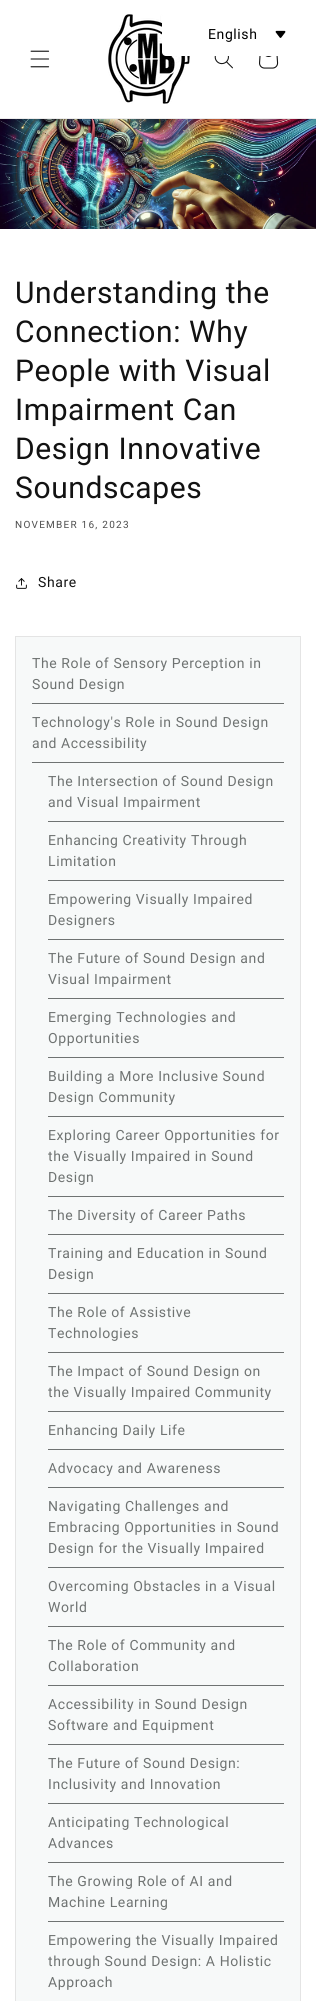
import math
import cairo

surface = cairo.ImageSurface(cairo.FORMAT_RGB24, 316, 2001)
cr = cairo.Context(surface)
options = cairo.FontOptions()
options.set_hint_metrics(cairo.HINT_METRICS_OFF)
options.set_hint_style(cairo.HINT_STYLE_NONE)
cr.set_font_options(options)
cr.set_miter_limit(4)


def rgb(code):
    cr.set_source_rgb(*(v / 255 for v in bytes.fromhex(code[-6:])))


def tracked(x, y, s, letter, word):
    cr.move_to(x, y)
    for ch in s:
        cr.show_text(ch)
        cr.rel_move_to(letter + word * (ch == ' '), 0)


def rrect(x, y, w, h, r):
    cr.new_sub_path()
    for i, (u, v) in enumerate([(x + w - r, y + h - r), (x + r, y + h - r), (x + r, y + r), (x + w - r, y + r)]):
        cr.arc(u, v, r, i * math.pi / 2, (i + 1) * math.pi / 2)
    cr.close_path()


def image(path, x, y, w, h):
    cr.save()
    cr.set_source_surface(cairo.ImageSurface.create_from_png(path), x, y)
    cr.rectangle(x, y, w, h)
    cr.fill()
    cr.restore()


rgb("#ffffff")
cr.paint()
rgb("#ececec")
cr.rectangle(0, 118, 316, 1)
cr.fill()
image("img/1.png", 30, 50, 20, 18)
image("img/2.png", 108, 14, 82, 90)
image("img/3.png", 214, 56, 19, 13)
image("img/4.png", 259, 56, 20, 13)
rgb("#ffffff")
rrect(162, 12, 142, 44, 4)
cr.fill()
image("img/5.png", 275, 30, 11, 8)
image("img/6.png", 0, 119, 316, 110)
image("img/7.png", 16, 578, 11, 11)
rgb("#f7f9f9")
cr.rectangle(15.5, 636.5, 285, 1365)
cr.fill_preserve()
rgb("#e4e4e4")
cr.set_line_width(1)
cr.stroke()
for x, y, w, h, color in [
    (32, 703, 252, 1, "#6f7372"),
    (32, 762, 252, 1, "#6f7372"),
    (48, 821, 236, 1, "#6f7372"),
    (48, 880, 236, 1, "#6f7372"),
    (48, 939, 236, 1, "#6f7372"),
    (48, 998, 236, 1, "#6f7372"),
    (48, 1057, 236, 1, "#6f7372"),
    (48, 1116, 236, 1, "#6f7372"),
    (48, 1196, 236, 1, "#6f7372"),
    (48, 1234, 236, 1, "#6f7372"),
    (48, 1293, 236, 1, "#6f7372"),
    (48, 1352, 236, 1, "#6f7372"),
    (48, 1411, 236, 1, "#6f7372"),
    (48, 1449, 236, 1, "#6f7372"),
    (48, 1487, 236, 1, "#6f7372"),
    (48, 1567, 236, 1, "#6f7372"),
    (48, 1626, 236, 1, "#6f7372"),
    (48, 1685, 236, 1, "#6f7372"),
    (48, 1744, 236, 1, "#6f7372"),
    (48, 1803, 236, 1, "#6f7372"),
    (48, 1862, 236, 1, "#6f7372"),
    (48, 1921, 236, 1, "#6f7372"),
]:
    rgb(color)
    cr.rectangle(x, y, w, h)
    cr.fill()
cr.select_font_face("Roboto")
cr.set_font_size(14)
rgb("#000000")
tracked(208, 39, "English", 0.6, 0)
cr.set_font_size(30)
rgb("#121212")
for x, y, s in [
    (15, 303, "Understanding the"),
    (15, 342, "Connection: Why"),
    (15, 381, "People with Visual"),
    (15, 420, "Impairment Can"),
    (15, 459, "Design Innovative"),
    (15, 498, "Soundscapes"),
]:
    tracked(x, y, s, 0.6, 0)
cr.set_font_size(10)
rgb("#4d4d4d")
tracked(15, 528, "NOVEMBER 16, 2023", 1.25, 0)
cr.set_font_size(14)
rgb("#121212")
tracked(38, 587, "Share", 0.6, 0)
rgb("#6f7372")
for x, y, s in [
    (32, 668, "The Role of Sensory Perception in"),
    (32, 689, "Sound Design"),
    (32, 727, "Technology's Role in Sound Design"),
    (32, 748, "and Accessibility"),
    (48, 786, "The Intersection of Sound Design"),
    (48, 807, "and Visual Impairment"),
    (48, 845, "Enhancing Creativity Through"),
    (48, 866, "Limitation"),
    (48, 904, "Empowering Visually Impaired"),
    (48, 925, "Designers"),
    (48, 963, "The Future of Sound Design and"),
    (48, 984, "Visual Impairment"),
    (48, 1022, "Emerging Technologies and"),
    (48, 1043, "Opportunities"),
    (48, 1081, "Building a More Inclusive Sound"),
    (48, 1102, "Design Community"),
    (48, 1140, "Exploring Career Opportunities for"),
    (48, 1161, "the Visually Impaired in Sound"),
    (48, 1182, "Design"),
    (48, 1220, "The Diversity of Career Paths"),
    (48, 1258, "Training and Education in Sound"),
    (48, 1279, "Design"),
    (48, 1317, "The Role of Assistive"),
    (48, 1338, "Technologies"),
    (48, 1376, "The Impact of Sound Design on"),
    (48, 1397, "the Visually Impaired Community"),
    (48, 1435, "Enhancing Daily Life"),
    (48, 1473, "Advocacy and Awareness"),
    (48, 1511, "Navigating Challenges and"),
    (48, 1532, "Embracing Opportunities in Sound"),
    (48, 1553, "Design for the Visually Impaired"),
    (48, 1591, "Overcoming Obstacles in a Visual"),
    (48, 1612, "World"),
    (48, 1650, "The Role of Community and"),
    (48, 1671, "Collaboration"),
    (48, 1709, "Accessibility in Sound Design"),
    (48, 1730, "Software and Equipment"),
    (48, 1768, "The Future of Sound Design:"),
    (48, 1789, "Inclusivity and Innovation"),
    (48, 1827, "Anticipating Technological"),
    (48, 1848, "Advances"),
    (48, 1886, "The Growing Role of AI and"),
    (48, 1907, "Machine Learning"),
    (48, 1945, "Empowering the Visually Impaired"),
    (48, 1966, "through Sound Design: A Holistic"),
    (48, 1987, "Approach"),
]:
    tracked(x, y, s, 0.6, 0)
surface.write_to_png("page.png")
